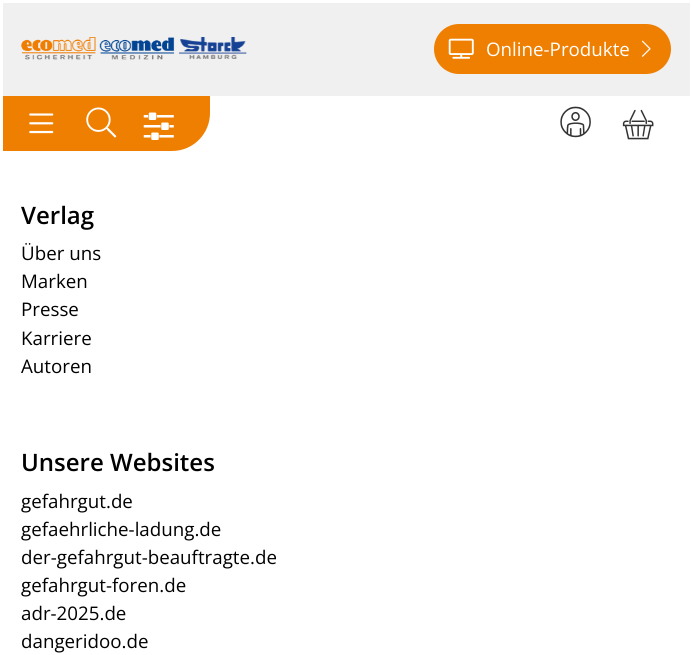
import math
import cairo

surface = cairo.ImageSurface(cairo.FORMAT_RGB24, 692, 655)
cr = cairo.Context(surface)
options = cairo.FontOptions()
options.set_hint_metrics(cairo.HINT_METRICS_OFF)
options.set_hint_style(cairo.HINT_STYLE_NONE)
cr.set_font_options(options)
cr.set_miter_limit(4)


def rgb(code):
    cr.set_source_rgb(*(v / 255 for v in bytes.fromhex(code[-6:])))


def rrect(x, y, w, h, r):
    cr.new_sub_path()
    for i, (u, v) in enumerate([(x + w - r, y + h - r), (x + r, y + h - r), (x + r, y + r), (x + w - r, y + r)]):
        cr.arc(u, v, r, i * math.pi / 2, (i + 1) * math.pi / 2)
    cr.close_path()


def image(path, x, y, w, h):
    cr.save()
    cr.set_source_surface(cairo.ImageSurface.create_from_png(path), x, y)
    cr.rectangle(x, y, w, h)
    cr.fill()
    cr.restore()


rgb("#ffffff")
cr.paint()
rgb("#f0f0f0")
cr.rectangle(3, 3, 687, 93)
cr.fill()
image("img/1.png", 21, 37, 226, 23)
rgb("#ef7f01")
rrect(434, 24, 237, 50, 25)
cr.fill()
image("img/2.png", 448, 38, 26, 21)
image("img/3.png", 641, 40, 10, 17)
cr.new_path()
cr.move_to(3, 96)
cr.line_to(210, 96)
cr.line_to(210, 113)
cr.curve_to(210, 134, 193, 151, 172, 151)
cr.line_to(3, 151)
cr.close_path()
cr.fill()
image("img/4.png", 29, 113, 25, 21)
image("img/5.png", 86, 107, 31, 31)
image("img/6.png", 143, 112, 31, 28)
image("img/7.png", 560, 106, 31, 32)
image("img/8.png", 622, 109, 32, 31)
cr.select_font_face("Open Sans")
cr.set_font_size(18.75)
rgb("#ffffff")
cr.move_to(486, 56)
cr.show_text("Online-Produkte")
cr.select_font_face("Open Sans SemiBold")
cr.set_font_size(24)
rgb("#000000")
cr.move_to(21, 224)
cr.show_text("Verlag")
cr.select_font_face("Open Sans")
cr.set_font_size(18.75)
for x, y, s in [
    (21, 260, "Über uns"),
    (21, 288, "Marken"),
    (21, 316, "Presse"),
    (21, 345, "Karriere"),
    (21, 373, "Autoren"),
]:
    cr.move_to(x, y)
    cr.show_text(s)
cr.select_font_face("Open Sans SemiBold")
cr.set_font_size(24)
cr.move_to(21, 471)
cr.show_text("Unsere Websites")
cr.select_font_face("Open Sans")
cr.set_font_size(18.75)
for x, y, s in [
    (21, 508, "gefahrgut.de"),
    (21, 536, "gefaehrliche-ladung.de"),
    (21, 564, "der-gefahrgut-beauftragte.de"),
    (21, 592, "gefahrgut-foren.de"),
    (21, 620, "adr-2025.de"),
    (21, 648, "dangeridoo.de"),
]:
    cr.move_to(x, y)
    cr.show_text(s)
surface.write_to_png("page.png")
